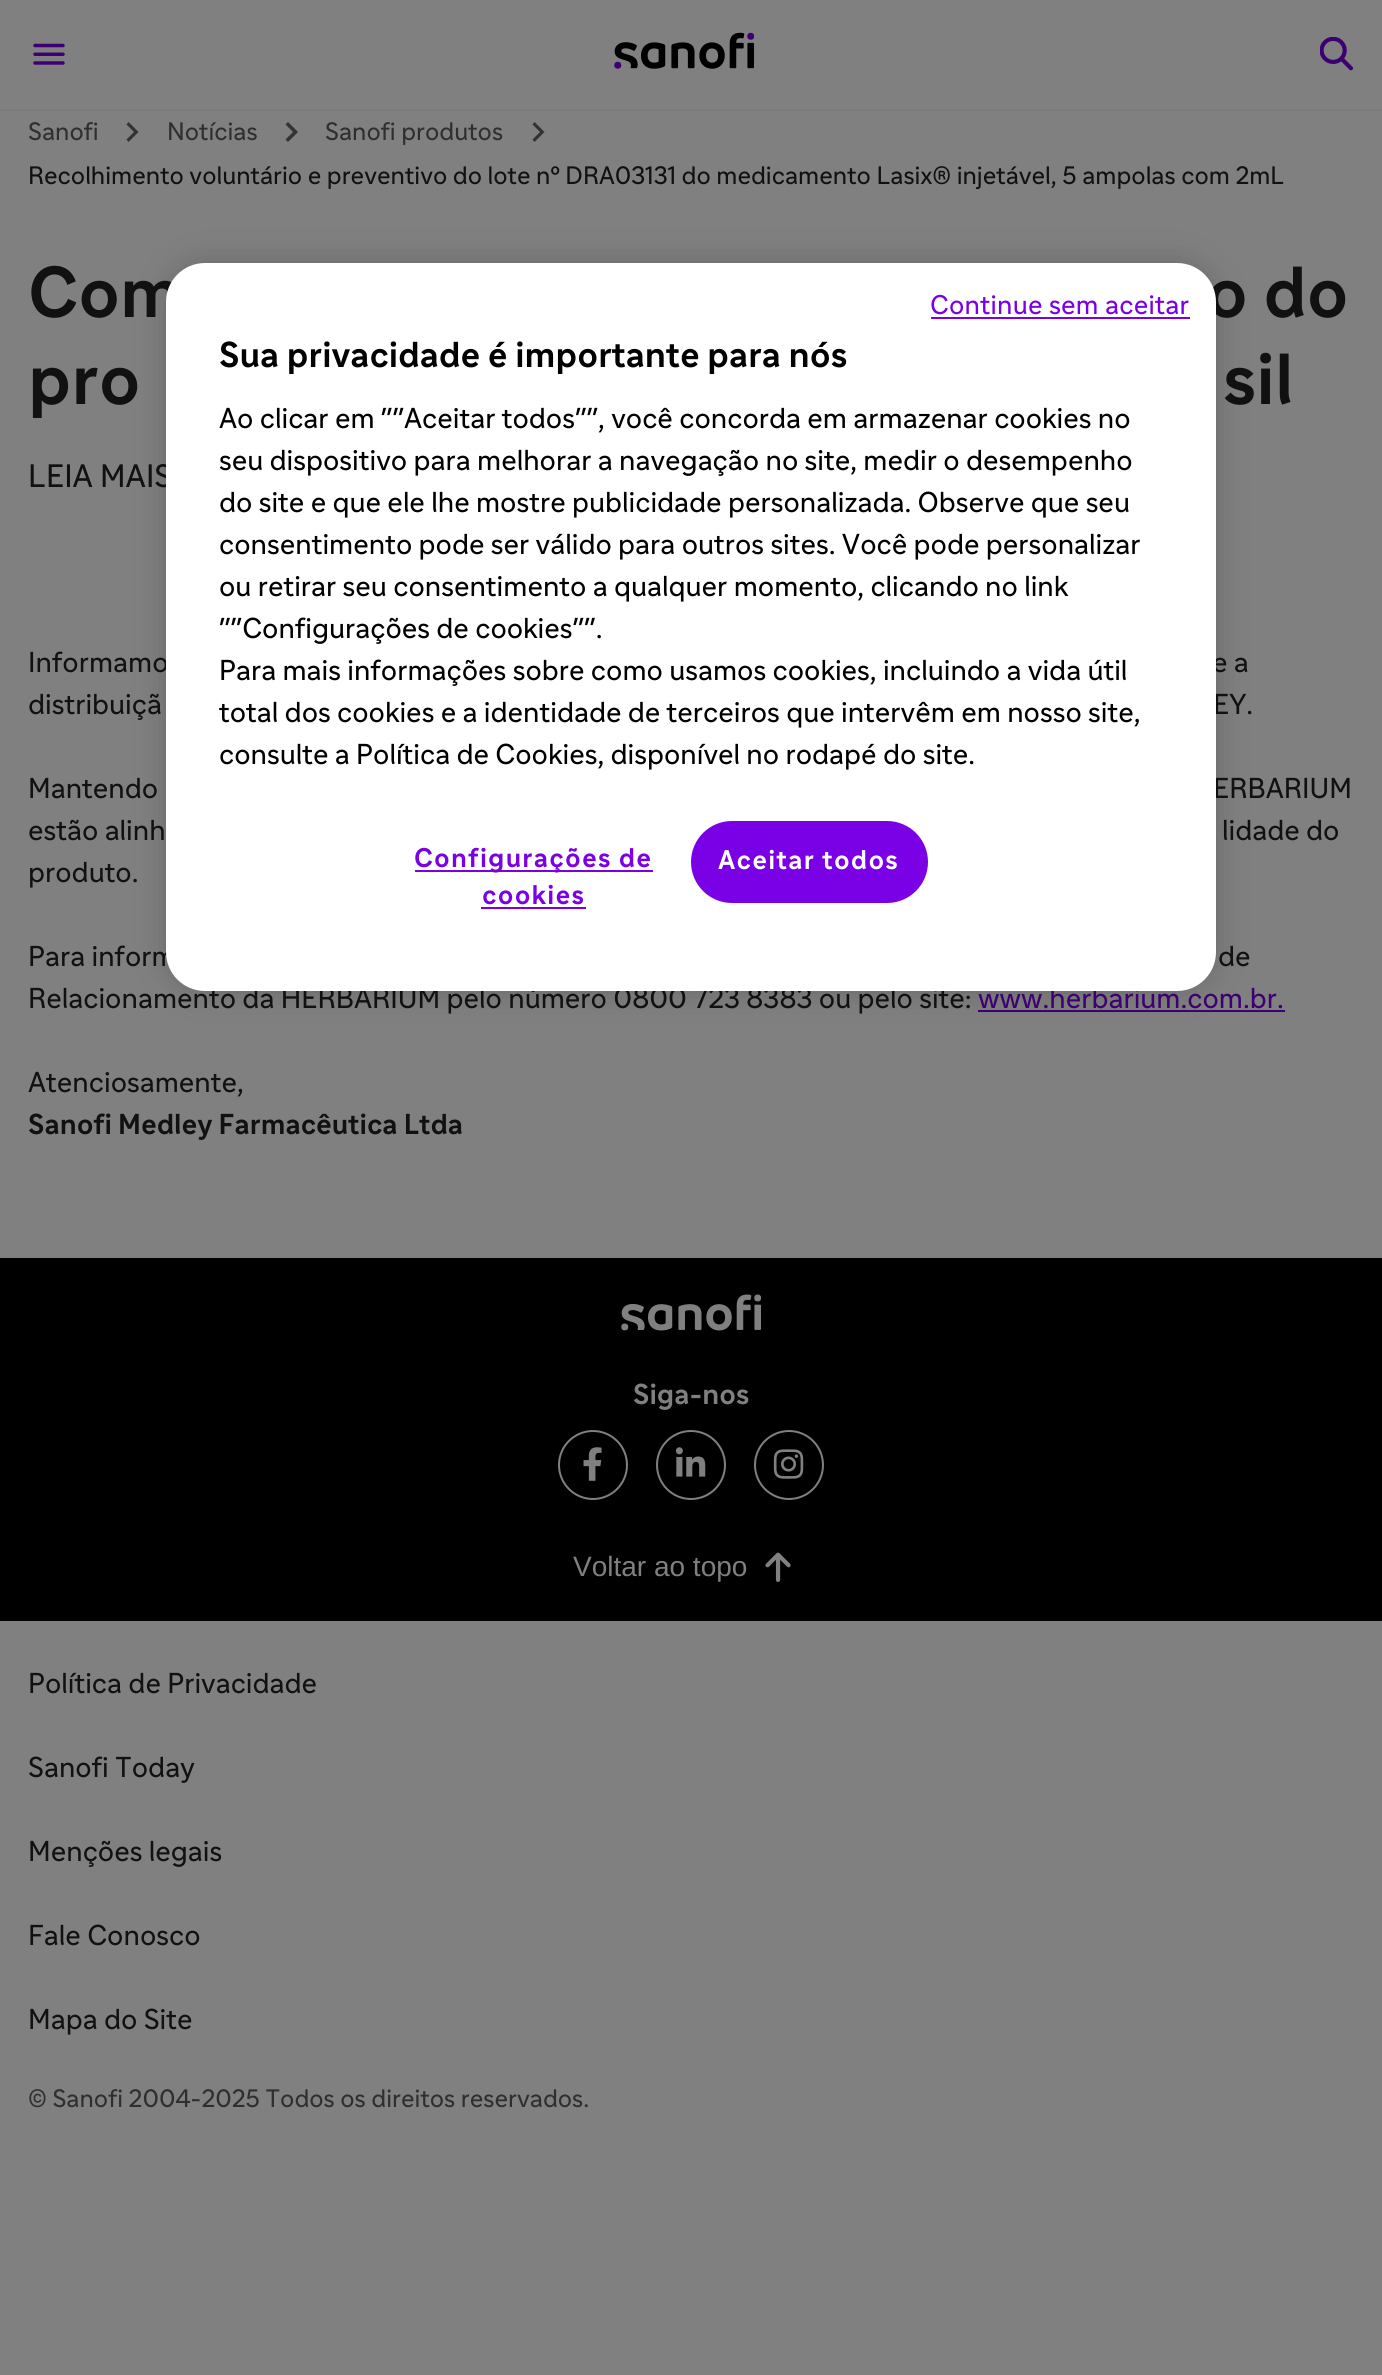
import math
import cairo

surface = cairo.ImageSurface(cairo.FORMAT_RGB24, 1382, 2375)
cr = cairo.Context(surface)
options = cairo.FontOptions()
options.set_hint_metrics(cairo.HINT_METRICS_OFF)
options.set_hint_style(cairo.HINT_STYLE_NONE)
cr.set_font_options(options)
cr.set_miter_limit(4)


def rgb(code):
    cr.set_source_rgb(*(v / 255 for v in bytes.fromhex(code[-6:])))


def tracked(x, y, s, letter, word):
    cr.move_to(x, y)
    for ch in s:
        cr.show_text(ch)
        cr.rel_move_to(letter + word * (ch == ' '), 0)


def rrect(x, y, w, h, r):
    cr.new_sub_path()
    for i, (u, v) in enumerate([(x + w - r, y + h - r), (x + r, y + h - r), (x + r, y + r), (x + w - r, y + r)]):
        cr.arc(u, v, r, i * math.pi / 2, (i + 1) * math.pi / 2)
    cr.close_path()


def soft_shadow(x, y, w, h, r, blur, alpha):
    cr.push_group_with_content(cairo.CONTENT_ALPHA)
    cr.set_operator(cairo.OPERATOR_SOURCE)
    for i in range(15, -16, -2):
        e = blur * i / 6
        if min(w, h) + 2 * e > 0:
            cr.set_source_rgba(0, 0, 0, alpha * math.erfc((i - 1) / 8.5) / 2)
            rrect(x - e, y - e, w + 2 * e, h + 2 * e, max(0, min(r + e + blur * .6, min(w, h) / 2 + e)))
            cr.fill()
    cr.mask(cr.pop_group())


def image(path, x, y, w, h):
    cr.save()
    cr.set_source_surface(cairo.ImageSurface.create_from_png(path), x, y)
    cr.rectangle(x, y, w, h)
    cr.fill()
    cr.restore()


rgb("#808080")
cr.paint()
rgb("#7b7b7b")
cr.rectangle(0, 109, 1382, 2)
cr.fill()
image("img/1.png", 33, 43, 32, 22)
image("img/2.png", 614, 32, 140, 37)
image("img/3.png", 1320, 37, 34, 34)
rgb("#333333")
cr.new_path()
cr.move_to(128.5, 122)
cr.line_to(126.5, 124.5)
cr.line_to(134, 132)
cr.line_to(126.5, 139.5)
cr.line_to(128.5, 142)
cr.line_to(138.5, 132)
cr.close_path()
cr.fill()
cr.new_path()
cr.move_to(288, 122)
cr.line_to(285.5, 124.5)
cr.line_to(293, 132)
cr.line_to(285.5, 139.5)
cr.line_to(288, 142)
cr.line_to(298, 132)
cr.close_path()
cr.fill()
cr.new_path()
cr.move_to(534.5, 122)
cr.line_to(532.5, 124.5)
cr.line_to(540, 132)
cr.line_to(532.5, 139.5)
cr.line_to(534.5, 142)
cr.line_to(544.5, 132)
cr.close_path()
cr.fill()
rgb("#3d0073")
cr.rectangle(978, 1010, 307, 2)
cr.fill()
rgb("#000000")
cr.rectangle(0, 1258, 1382, 363)
cr.fill()
image("img/4.png", 621, 1294, 140, 37)
cr.arc(593, 1465, 34, 0, 2 * math.pi)
rgb("#808080")
cr.stroke()
image("img/5.png", 583, 1447, 19, 34)
cr.arc(691, 1465, 34, 0, 2 * math.pi)
cr.stroke()
image("img/6.png", 675, 1447, 31, 30)
cr.arc(789, 1465, 34, 0, 2 * math.pi)
cr.stroke()
image("img/7.png", 773, 1449, 31, 30)
image("img/8.png", 765, 1552, 26, 30)
rgb("#000000")
soft_shadow(166, 263, 1050, 728, 39, 16, 0.2)
cr.select_font_face("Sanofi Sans")
cr.set_font_size(24.5)
rgb("#2f2f2f")
for x, y, s in [
    (28, 140, "Sanofi"),
    (167, 140, "Notícias"),
    (325, 140, "Sanofi produtos"),
]:
    cr.move_to(x, y)
    cr.show_text(s)
rgb("#111111")
cr.move_to(28, 184)
cr.show_text("Recolhimento voluntário e preventivo do lote nº DRA03131 do medicamento Lasix® injetável, 5 ampolas com 2mL")
cr.select_font_face("Sanofi Sans", cairo.FONT_SLANT_NORMAL, cairo.FONT_WEIGHT_BOLD)
cr.set_font_size(70)
for x, y, s in [
    (28, 317, "Com"),
    (1206, 317, "o do"),
    (28, 404, "pro"),
    (1223, 404, "sil"),
]:
    cr.move_to(x, y)
    cr.show_text(s)
cr.select_font_face("Sanofi Sans")
cr.set_font_size(31.5)
cr.move_to(28, 487)
cr.show_text("LEIA MAIS")
cr.set_font_size(28)
for x, y, s in [
    (28, 672, "Informamo"),
    (1212, 672, "e a"),
    (28, 714, "distribuiçã"),
    (1213, 714, "EY."),
    (28, 798, "Mantendo"),
    (1213, 798, "ERBARIUM"),
    (28, 840, "estão alinh"),
    (1222, 840, "lidade do"),
    (28, 882, "produto."),
    (28, 966, "Para inform"),
    (1218, 966, "de"),
    (28, 1008, "Relacionamento da HERBARIUM pelo número 0800 723 8383 ou pelo site:"),
]:
    cr.move_to(x, y)
    cr.show_text(s)
rgb("#3d0073")
cr.move_to(978, 1008)
cr.show_text("www.herbarium.com.br.")
rgb("#111111")
cr.move_to(28, 1092)
cr.show_text("Atenciosamente,")
cr.select_font_face("Sanofi Sans", cairo.FONT_SLANT_NORMAL, cairo.FONT_WEIGHT_BOLD)
cr.move_to(28, 1134)
cr.show_text("Sanofi Medley Farmacêutica Ltda")
rgb("#808080")
cr.move_to(633, 1404)
cr.show_text("Siga-nos")
cr.select_font_face("Liberation Sans")
cr.move_to(573, 1576)
cr.show_text("Voltar ao topo")
cr.select_font_face("Sanofi Sans")
rgb("#111111")
for x, y, s in [
    (28, 1693, "Política de Privacidade"),
    (28, 1777, "Sanofi Today"),
    (28, 1861, "Menções legais"),
    (28, 1945, "Fale Conosco"),
    (28, 2029, "Mapa do Site"),
]:
    cr.move_to(x, y)
    cr.show_text(s)
cr.set_font_size(24.5)
rgb("#2f2f2f")
cr.move_to(28, 2107)
cr.show_text("© Sanofi 2004-2025 Todos os direitos reservados.")
rgb("#ffffff")
rrect(166, 263, 1050, 728, 39)
cr.fill()
cr.set_font_size(26.25)
rgb("#7a00e6")
tracked(930, 314, "Continue sem aceitar", 0.25, 0)
cr.rectangle(931, 317, 259, 2)
cr.fill()
cr.select_font_face("Sanofi Sans", cairo.FONT_SLANT_NORMAL, cairo.FONT_WEIGHT_BOLD)
cr.set_font_size(35)
rgb("#000000")
cr.move_to(219, 367)
cr.show_text("Sua privacidade é importante para nós")
cr.select_font_face("Sanofi Sans")
cr.set_font_size(28)
for x, y, s in [
    (219, 428, "Ao clicar em \"\"Aceitar todos\"\", você concorda em armazenar cookies no"),
    (219, 470, "seu dispositivo para melhorar a navegação no site, medir o desempenho"),
    (219, 512, "do site e que ele lhe mostre publicidade personalizada. Observe que seu"),
    (219, 554, "consentimento pode ser válido para outros sites. Você pode personalizar"),
    (219, 596, "ou retirar seu consentimento a qualquer momento, clicando no link"),
    (219, 638, "\"\"Configurações de cookies\"\"."),
    (219, 680, "Para mais informações sobre como usamos cookies, incluindo a vida útil"),
    (219, 722, "total dos cookies e a identidade de terceiros que intervêm em nosso site,"),
    (219, 764, "consulte a Política de Cookies, disponível no rodapé do site."),
]:
    cr.move_to(x, y)
    cr.show_text(s)
rgb("#7a00e6")
cr.rectangle(415, 870, 238, 2)
cr.fill()
cr.select_font_face("Sanofi Sans", cairo.FONT_SLANT_NORMAL, cairo.FONT_WEIGHT_BOLD)
cr.set_font_size(26.25)
tracked(414, 867, "Configurações de", 1.25, 0)
tracked(482, 904, "cookies", 1.25, 0)
cr.rectangle(481, 907, 105, 2)
cr.fill()
rrect(692, 822, 235, 80, 40)
cr.fill_preserve()
cr.stroke()
rgb("#ffffff")
tracked(718, 869, "Aceitar todos", 1.25, 0)
surface.write_to_png("page.png")
